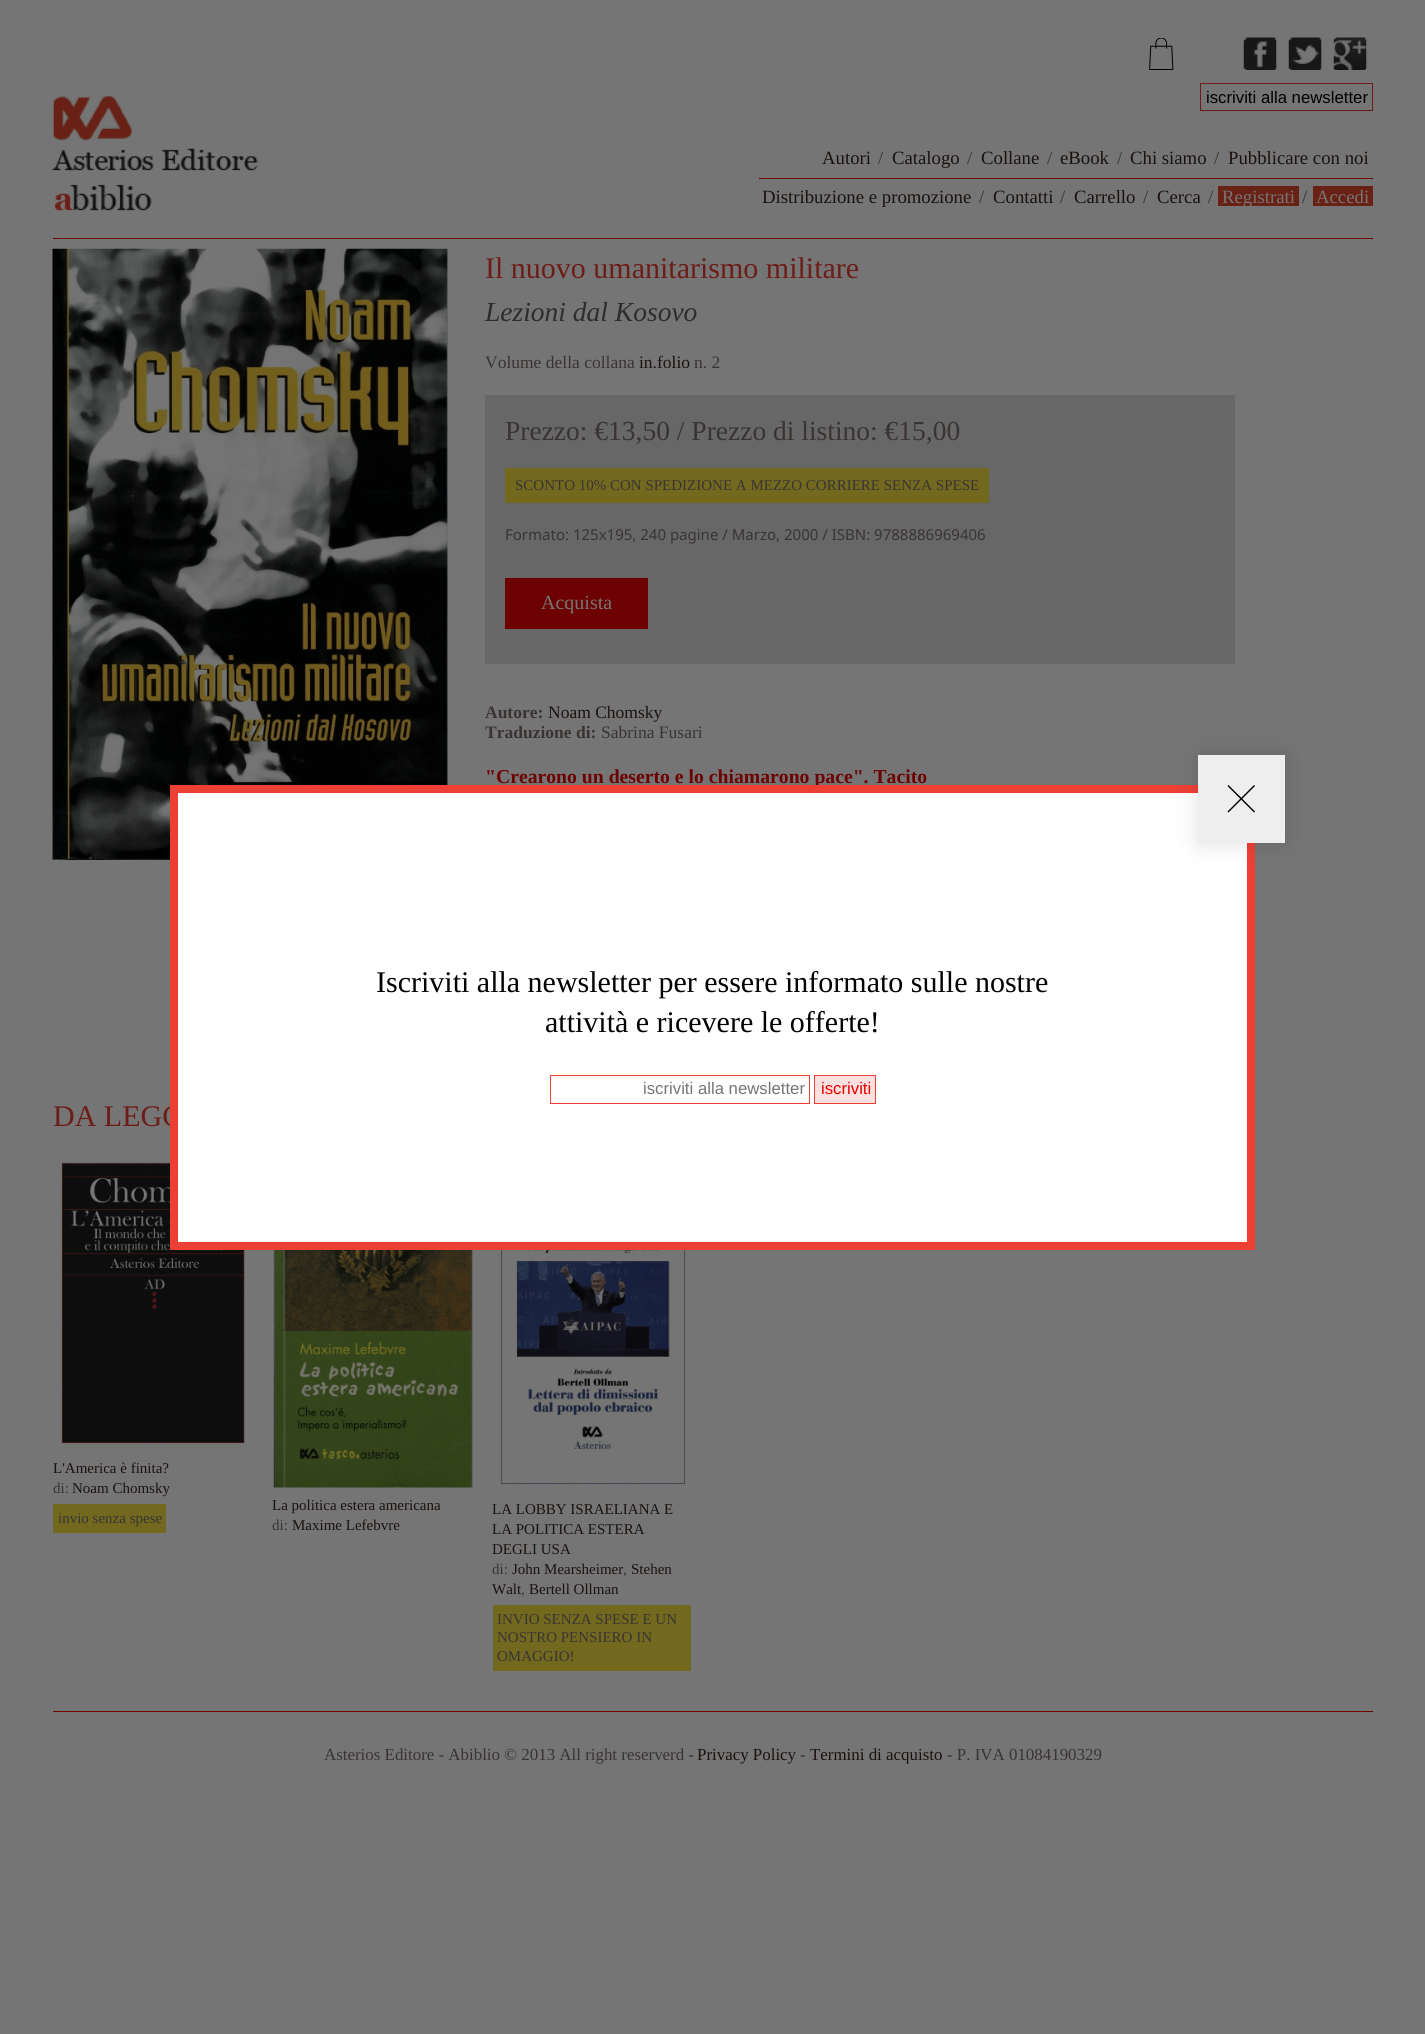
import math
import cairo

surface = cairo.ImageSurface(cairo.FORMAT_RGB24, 1425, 2034)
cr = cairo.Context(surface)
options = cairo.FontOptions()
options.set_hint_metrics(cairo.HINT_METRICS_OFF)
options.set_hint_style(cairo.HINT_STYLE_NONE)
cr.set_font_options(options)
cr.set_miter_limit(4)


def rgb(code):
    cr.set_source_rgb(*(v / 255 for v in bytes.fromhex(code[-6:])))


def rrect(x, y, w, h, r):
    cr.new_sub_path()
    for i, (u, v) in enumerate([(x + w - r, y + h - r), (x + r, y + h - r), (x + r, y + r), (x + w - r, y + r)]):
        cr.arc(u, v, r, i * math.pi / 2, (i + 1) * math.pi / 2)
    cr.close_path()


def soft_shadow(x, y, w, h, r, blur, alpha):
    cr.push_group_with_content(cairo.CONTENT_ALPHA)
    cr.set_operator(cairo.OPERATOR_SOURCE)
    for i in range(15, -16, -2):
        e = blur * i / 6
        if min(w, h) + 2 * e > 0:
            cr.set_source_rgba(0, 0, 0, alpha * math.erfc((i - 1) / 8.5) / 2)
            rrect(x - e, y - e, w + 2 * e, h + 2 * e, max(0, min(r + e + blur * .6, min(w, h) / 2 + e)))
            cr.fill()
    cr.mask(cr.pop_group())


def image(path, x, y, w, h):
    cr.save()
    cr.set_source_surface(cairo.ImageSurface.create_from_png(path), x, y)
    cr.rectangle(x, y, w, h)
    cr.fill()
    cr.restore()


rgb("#757575")
cr.paint()
image("img/1.png", 52, 95, 206, 116)
image("img/2.png", 1149, 38, 25, 32)
image("img/3.png", 1243, 37, 34, 33)
image("img/4.png", 1288, 37, 34, 33)
image("img/5.png", 1333, 37, 34, 33)
cr.rectangle(1200.5, 83.5, 172, 27)
rgb("#6d1d18")
cr.set_line_width(1)
cr.stroke()
for x, y, w, h, color in [
    (759, 178, 614, 1, "#6d0000"),
    (1218, 186, 81, 20, "#692116"),
    (1313, 186, 60, 20, "#692116"),
    (53, 238, 1320, 1, "#6d0000"),
]:
    rgb(color)
    cr.rectangle(x, y, w, h)
    cr.fill()
image("img/6.png", 52, 248, 396, 612)
for x, y, w, h, color in [
    (485, 395, 750, 269, "#676767"),
    (505, 468, 484, 35, "#72691f"),
    (505, 578, 143, 51, "#6d0000"),
]:
    rgb(color)
    cr.rectangle(x, y, w, h)
    cr.fill()
image("img/7.png", 61, 1162, 184, 282)
rgb("#72691f")
cr.rectangle(53, 1504, 113, 29)
cr.fill()
image("img/8.png", 273, 1250, 200, 238)
image("img/9.png", 500, 1250, 186, 237)
cr.rectangle(493, 1605, 198, 66)
cr.fill()
rgb("#6d0000")
cr.rectangle(53, 1711, 1320, 1)
cr.fill()
cr.select_font_face("Liberation Sans")
cr.set_font_size(16.75)
rgb("#000000")
cr.move_to(1206, 103)
cr.show_text("iscriviti alla newsletter")
cr.select_font_face("Liberation Serif")
cr.set_font_size(18.75)
rgb("#1a120f")
cr.move_to(822, 164)
cr.show_text("Autori")
rgb("#393432")
cr.move_to(878, 164)
cr.show_text("/")
rgb("#1a120f")
cr.move_to(892, 164)
cr.show_text("Catalogo")
rgb("#393432")
cr.move_to(967, 164)
cr.show_text("/")
rgb("#1a120f")
cr.move_to(981, 164)
cr.show_text("Collane")
rgb("#393432")
cr.move_to(1047, 164)
cr.show_text("/")
rgb("#1a120f")
cr.move_to(1060, 164)
cr.show_text("eBook")
rgb("#393432")
cr.move_to(1117, 164)
cr.show_text("/")
rgb("#1a120f")
cr.move_to(1130, 164)
cr.show_text("Chi siamo")
rgb("#393432")
cr.move_to(1214, 164)
cr.show_text("/")
rgb("#1a120f")
cr.move_to(1228, 164)
cr.show_text("Pubblicare con noi")
cr.move_to(762, 203)
cr.show_text("Distribuzione e promozione")
rgb("#393432")
cr.move_to(979, 203)
cr.show_text("/")
rgb("#1a120f")
cr.move_to(993, 203)
cr.show_text("Contatti")
rgb("#393432")
cr.move_to(1060, 203)
cr.show_text("/")
rgb("#1a120f")
cr.move_to(1074, 203)
cr.show_text("Carrello")
rgb("#393432")
cr.move_to(1143, 203)
cr.show_text("/")
rgb("#1a120f")
cr.move_to(1157, 203)
cr.show_text("Cerca")
rgb("#393432")
cr.move_to(1208, 203)
cr.show_text("/")
rgb("#757575")
cr.move_to(1222, 203)
cr.show_text("Registrati")
rgb("#393432")
cr.move_to(1302, 203)
cr.show_text("/")
rgb("#757575")
cr.move_to(1316, 203)
cr.show_text("Accedi")
cr.set_font_size(30)
rgb("#6d1d18")
cr.move_to(485, 278)
cr.show_text("Il nuovo umanitarismo militare")
cr.select_font_face("Liberation Serif", cairo.FONT_SLANT_ITALIC)
cr.set_font_size(27.5)
rgb("#2e2c2c")
cr.move_to(485, 321)
cr.show_text("Lezioni dal Kosovo")
cr.select_font_face("Liberation Serif")
cr.set_font_size(17.5)
rgb("#393432")
cr.move_to(485, 368)
cr.show_text("Volume della collana")
rgb("#1a120f")
cr.move_to(639, 368)
cr.show_text("in.folio")
rgb("#393432")
cr.move_to(694, 368)
cr.show_text("n. 2")
cr.set_font_size(27.5)
cr.move_to(505, 440)
cr.show_text("Prezzo: €13,50 / Prezzo di listino: €15,00")
cr.set_font_size(15)
cr.move_to(515, 490)
cr.show_text("SCONTO 10% CON SPEDIZIONE A MEZZO CORRIERE SENZA SPESE")
cr.select_font_face("Noto Sans")
cr.move_to(505, 540)
cr.show_text("Formato: 125x195, 240 pagine / Marzo, 2000 / ISBN: 9788886969406")
cr.select_font_face("Liberation Serif")
cr.set_font_size(20)
rgb("#757575")
cr.move_to(541, 609)
cr.show_text("Acquista")
cr.select_font_face("Liberation Serif", cairo.FONT_SLANT_NORMAL, cairo.FONT_WEIGHT_BOLD)
cr.set_font_size(17.5)
rgb("#393432")
cr.move_to(485, 718)
cr.show_text("Autore:")
cr.select_font_face("Liberation Serif")
rgb("#1a120f")
cr.move_to(548, 718)
cr.show_text("Noam Chomsky")
cr.select_font_face("Liberation Serif", cairo.FONT_SLANT_NORMAL, cairo.FONT_WEIGHT_BOLD)
rgb("#393432")
cr.move_to(485, 738)
cr.show_text("Traduzione di:")
cr.select_font_face("Liberation Serif")
cr.move_to(601, 738)
cr.show_text("Sabrina Fusari")
cr.select_font_face("Liberation Serif", cairo.FONT_SLANT_NORMAL, cairo.FONT_WEIGHT_BOLD)
cr.set_font_size(19.7)
rgb("#6d0000")
cr.move_to(485, 783)
cr.show_text("\"Crearono un deserto e lo chiamarono pace\". Tacito")
cr.select_font_face("Liberation Serif")
cr.set_font_size(30)
rgb("#6d1d18")
cr.move_to(53, 1126)
cr.show_text("DA LEGG")
cr.set_font_size(15)
rgb("#1a120f")
cr.move_to(53, 1473)
cr.show_text("L'America è finita?")
rgb("#393432")
cr.move_to(53, 1493)
cr.show_text("di:")
rgb("#1a120f")
cr.move_to(72, 1493)
cr.show_text("Noam Chomsky")
rgb("#393432")
cr.move_to(58, 1523)
cr.show_text("invio senza spese")
rgb("#1a120f")
cr.move_to(272, 1510)
cr.show_text("La politica estera americana")
rgb("#393432")
cr.move_to(272, 1530)
cr.show_text("di:")
rgb("#1a120f")
for x, y, s in [
    (292, 1530, "Maxime Lefebvre"),
    (492, 1514, "LA LOBBY ISRAELIANA E"),
    (492, 1534, "LA POLITICA ESTERA"),
    (492, 1554, "DEGLI USA"),
]:
    cr.move_to(x, y)
    cr.show_text(s)
rgb("#393432")
cr.move_to(492, 1574)
cr.show_text("di:")
rgb("#1a120f")
cr.move_to(512, 1574)
cr.show_text("John Mearsheimer")
rgb("#393432")
cr.move_to(623, 1574)
cr.show_text(",")
rgb("#1a120f")
cr.move_to(631, 1574)
cr.show_text("Stehen")
cr.move_to(492, 1594)
cr.show_text("Walt")
rgb("#393432")
cr.move_to(521, 1594)
cr.show_text(",")
rgb("#1a120f")
cr.move_to(529, 1594)
cr.show_text("Bertell Ollman")
rgb("#393432")
for x, y, s in [
    (497, 1624, "INVIO SENZA SPESE E UN"),
    (497, 1642, "NOSTRO PENSIERO IN"),
    (497, 1661, "OMAGGIO!"),
]:
    cr.move_to(x, y)
    cr.show_text(s)
cr.set_font_size(16.9)
cr.move_to(324, 1760)
cr.show_text("Asterios Editore - Abiblio © 2013 All right reserverd -")
rgb("#1a120f")
cr.move_to(697, 1760)
cr.show_text("Privacy Policy")
rgb("#393432")
cr.move_to(800, 1760)
cr.show_text("-")
rgb("#1a120f")
cr.move_to(810, 1760)
cr.show_text("Termini di acquisto")
rgb("#393432")
cr.move_to(947, 1760)
cr.show_text("- P. IVA 01084190329")
rgb("#ffffff")
cr.rectangle(174, 789, 1077, 457)
cr.fill_preserve()
rgb("#ec4035")
cr.set_line_width(8)
cr.stroke()
rgb("#000000")
soft_shadow(1198, 755, 87, 88, 0, 12, 0.12)
rgb("#eeeeee")
cr.rectangle(1198, 755, 87, 88)
cr.fill()
rgb("#000000")
cr.new_path()
cr.move_to(1228.5, 785)
cr.line_to(1255, 811.5)
cr.line_to(1254, 812.5)
cr.line_to(1227.5, 786)
cr.close_path()
cr.fill()
cr.new_path()
cr.move_to(1227.5, 811.5)
cr.line_to(1254, 785)
cr.line_to(1255, 786)
cr.line_to(1228.5, 812.5)
cr.close_path()
cr.fill()
cr.set_font_size(30)
cr.move_to(376, 992)
cr.show_text("Iscriviti alla newsletter per essere informato sulle nostre")
cr.move_to(545, 1032)
cr.show_text("attività e ricevere le offerte!")
cr.rectangle(550.5, 1075.5, 259, 28)
rgb("#ec4035")
cr.set_line_width(1)
cr.stroke()
cr.select_font_face("Liberation Sans")
cr.set_font_size(16.75)
rgb("#757575")
cr.move_to(643, 1094)
cr.show_text("iscriviti alla newsletter")
rgb("#fde0e0")
cr.rectangle(814.5, 1075.5, 61, 28)
cr.fill_preserve()
rgb("#ec4035")
cr.stroke()
rgb("#ed0000")
cr.move_to(821, 1094)
cr.show_text("iscriviti")
surface.write_to_png("page.png")
